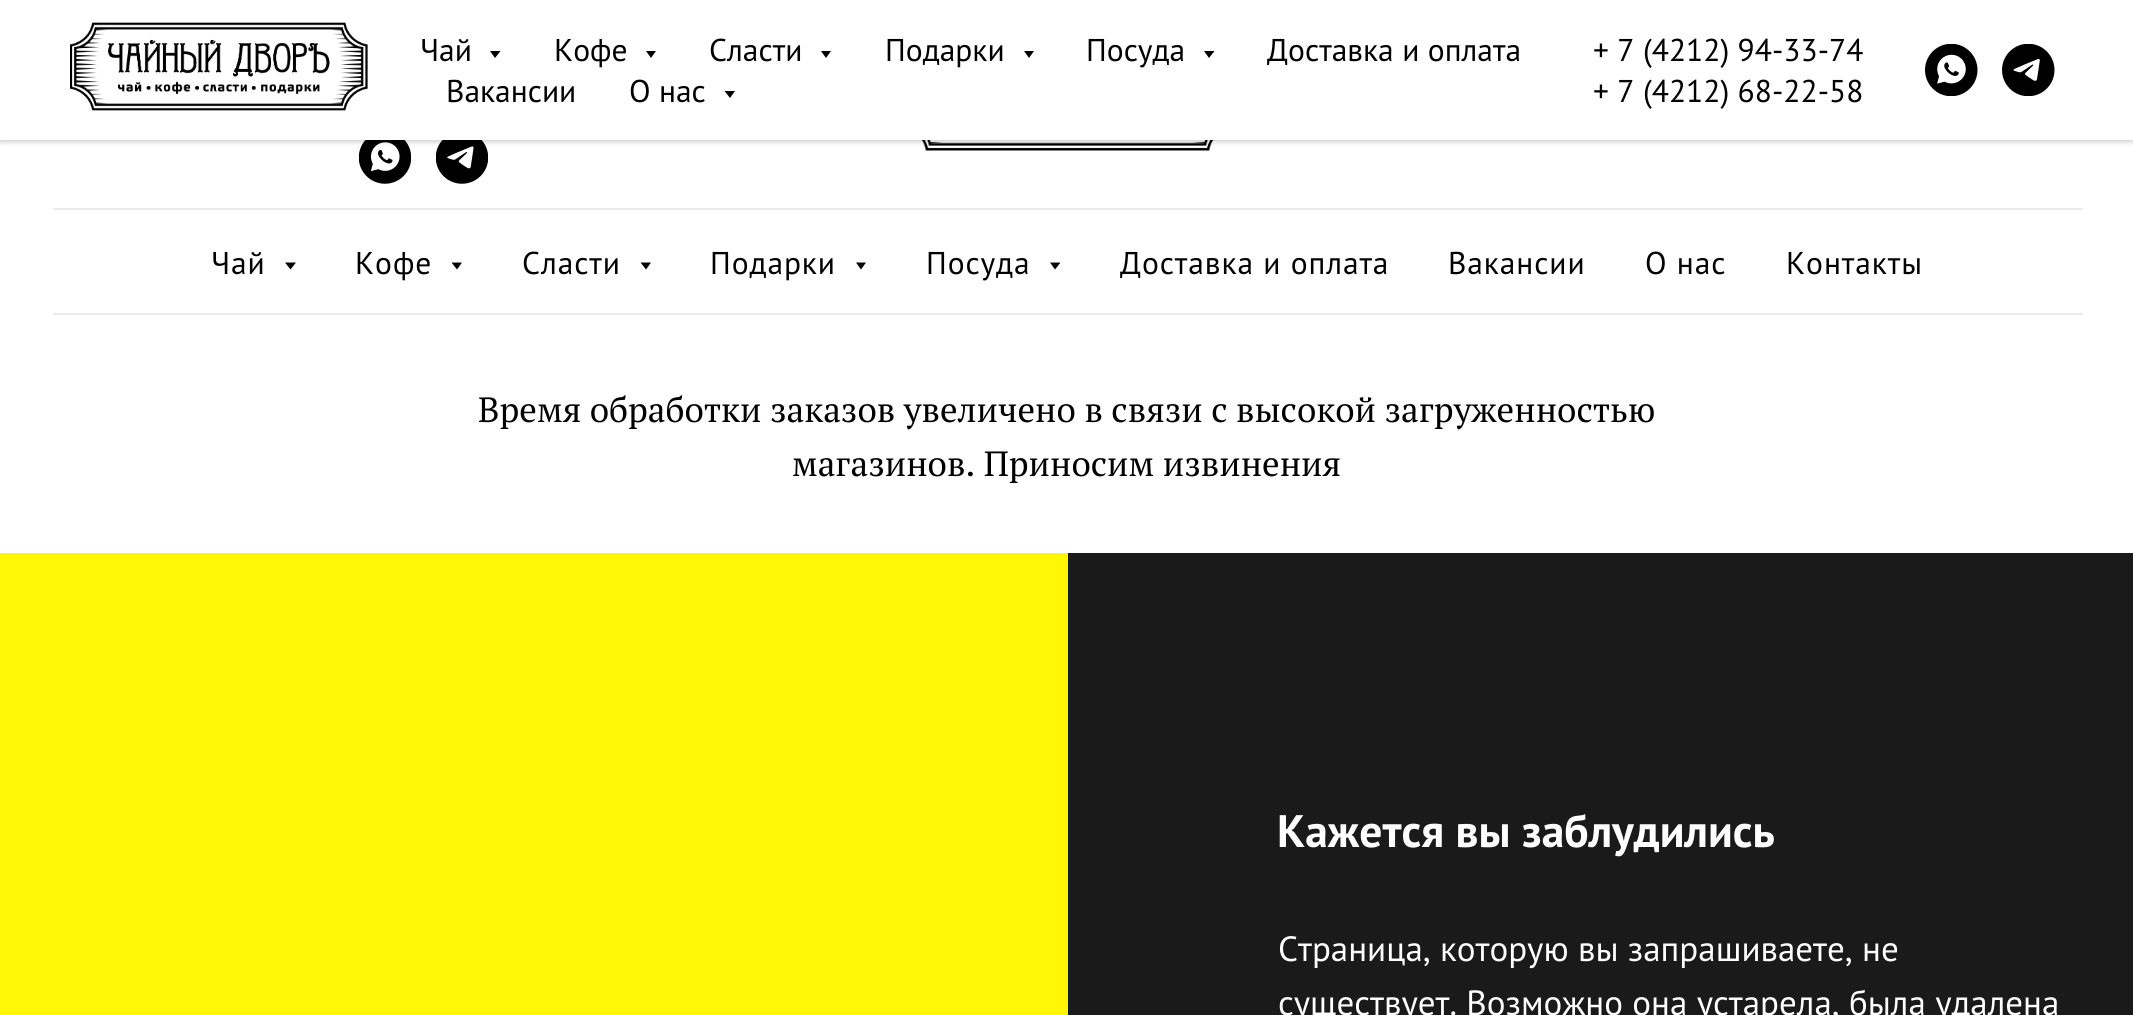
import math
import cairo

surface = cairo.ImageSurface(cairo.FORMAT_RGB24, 2133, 1015)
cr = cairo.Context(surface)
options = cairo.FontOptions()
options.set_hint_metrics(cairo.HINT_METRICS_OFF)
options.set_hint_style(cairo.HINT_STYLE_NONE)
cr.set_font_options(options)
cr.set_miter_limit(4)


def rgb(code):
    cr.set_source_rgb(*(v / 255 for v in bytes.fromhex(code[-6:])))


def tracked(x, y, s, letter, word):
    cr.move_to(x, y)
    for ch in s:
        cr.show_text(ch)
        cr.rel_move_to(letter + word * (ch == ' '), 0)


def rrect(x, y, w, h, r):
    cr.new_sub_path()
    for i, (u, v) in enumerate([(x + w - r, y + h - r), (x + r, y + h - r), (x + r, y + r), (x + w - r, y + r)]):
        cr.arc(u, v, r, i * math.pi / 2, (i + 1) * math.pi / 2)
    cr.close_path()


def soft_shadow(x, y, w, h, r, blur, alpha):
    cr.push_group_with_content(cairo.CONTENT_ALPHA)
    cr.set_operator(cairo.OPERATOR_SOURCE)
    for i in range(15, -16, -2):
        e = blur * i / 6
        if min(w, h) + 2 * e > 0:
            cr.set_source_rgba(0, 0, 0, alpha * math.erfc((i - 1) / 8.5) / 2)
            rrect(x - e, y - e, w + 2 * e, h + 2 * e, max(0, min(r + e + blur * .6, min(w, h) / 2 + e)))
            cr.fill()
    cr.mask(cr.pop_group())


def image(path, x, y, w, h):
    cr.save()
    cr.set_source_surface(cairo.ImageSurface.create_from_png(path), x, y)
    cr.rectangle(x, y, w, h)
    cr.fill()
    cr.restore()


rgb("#ffffff")
cr.paint()
image("img/4.png", 359, 140, 52, 44)
image("img/5.png", 436, 140, 52, 44)
image("img/6.png", 921, 140, 293, 11)
rgb("#000000")
soft_shadow(0, 2, 2133, 140, 0, 2.5, 0.2)
rgb("#ffffff")
cr.rectangle(0, 0, 2133, 140)
cr.fill()
image("img/1.png", 70, 22, 298, 89)
rgb("#000000")
cr.new_path()
cr.move_to(490, 51)
cr.line_to(500.5, 51)
cr.line_to(495, 58)
cr.close_path()
cr.fill()
cr.new_path()
cr.move_to(646, 51)
cr.line_to(656, 51)
cr.line_to(651, 58)
cr.close_path()
cr.fill()
cr.new_path()
cr.move_to(821, 51)
cr.line_to(831, 51)
cr.line_to(826, 58)
cr.close_path()
cr.fill()
cr.new_path()
cr.move_to(1024, 51)
cr.line_to(1034, 51)
cr.line_to(1029, 58)
cr.close_path()
cr.fill()
cr.new_path()
cr.move_to(1204, 51)
cr.line_to(1214.5, 51)
cr.line_to(1209, 58)
cr.close_path()
cr.fill()
cr.new_path()
cr.move_to(724.5, 91)
cr.line_to(735, 91)
cr.line_to(730, 98)
cr.close_path()
cr.fill()
image("img/2.png", 1925, 44, 53, 52)
image("img/3.png", 2002, 44, 53, 52)
rgb("#eaeaea")
cr.rectangle(53, 208, 2030, 2)
cr.fill()
rgb("#000000")
cr.new_path()
cr.move_to(285, 262.5)
cr.line_to(296, 262.5)
cr.line_to(290.5, 269.5)
cr.close_path()
cr.fill()
cr.new_path()
cr.move_to(451.5, 262.5)
cr.line_to(462, 262.5)
cr.line_to(457, 269.5)
cr.close_path()
cr.fill()
cr.new_path()
cr.move_to(640.5, 262.5)
cr.line_to(651, 262.5)
cr.line_to(646, 269.5)
cr.close_path()
cr.fill()
cr.new_path()
cr.move_to(856, 262.5)
cr.line_to(866, 262.5)
cr.line_to(861, 269.5)
cr.close_path()
cr.fill()
cr.new_path()
cr.move_to(1050, 262.5)
cr.line_to(1060.5, 262.5)
cr.line_to(1055, 269.5)
cr.close_path()
cr.fill()
for x, y, w, h, color in [
    (53, 313, 2030, 2, "#eaeaea"),
    (1068, 553, 1065, 462, "#1a1a1a"),
    (0, 553, 1068, 462, "#fff705"),
]:
    rgb(color)
    cr.rectangle(x, y, w, h)
    cr.fill()
cr.select_font_face("PT Sans")
cr.set_font_size(31.5)
rgb("#000000")
for x, y, s in [
    (420, 61, "Чай"),
    (554, 61, "Кофе"),
    (709, 61, "Сласти"),
    (885, 61, "Подарки"),
    (1086, 61, "Посуда"),
    (1267, 61, "Доставка и оплата"),
    (446, 102, "Вакансии"),
    (629, 102, "О нас"),
    (1593, 61, "+ 7 (4212) 94-33-74"),
    (1593, 102, "+ 7 (4212) 68-22-58"),
]:
    cr.move_to(x, y)
    cr.show_text(s)
for x, y, s in [
    (211, 274, "Чай"),
    (355, 274, "Кофе"),
    (522, 274, "Сласти"),
    (710, 274, "Подарки"),
    (926, 274, "Посуда"),
    (1120, 274, "Доставка и оплата"),
    (1448, 274, "Вакансии"),
    (1645, 274, "О нас"),
    (1786, 274, "Контакты"),
]:
    tracked(x, y, s, 0.9, 0)
cr.select_font_face("PT Serif")
cr.set_font_size(35)
cr.move_to(478, 422)
cr.show_text("Время обработки заказов увеличено в связи с высокой загруженностью")
cr.move_to(792, 476)
cr.show_text("магазинов. Приносим извинения")
cr.select_font_face("PT Sans", cairo.FONT_SLANT_NORMAL, cairo.FONT_WEIGHT_BOLD)
cr.set_font_size(45.5)
rgb("#ffffff")
cr.move_to(1277, 847)
cr.show_text("Кажется вы заблудились")
cr.select_font_face("PT Sans")
cr.set_font_size(35)
cr.move_to(1278, 961)
cr.show_text("Страница, которую вы запрашиваете, не")
cr.move_to(1278, 1015)
cr.show_text("существует. Возможно она устарела, была удалена")
surface.write_to_png("page.png")
